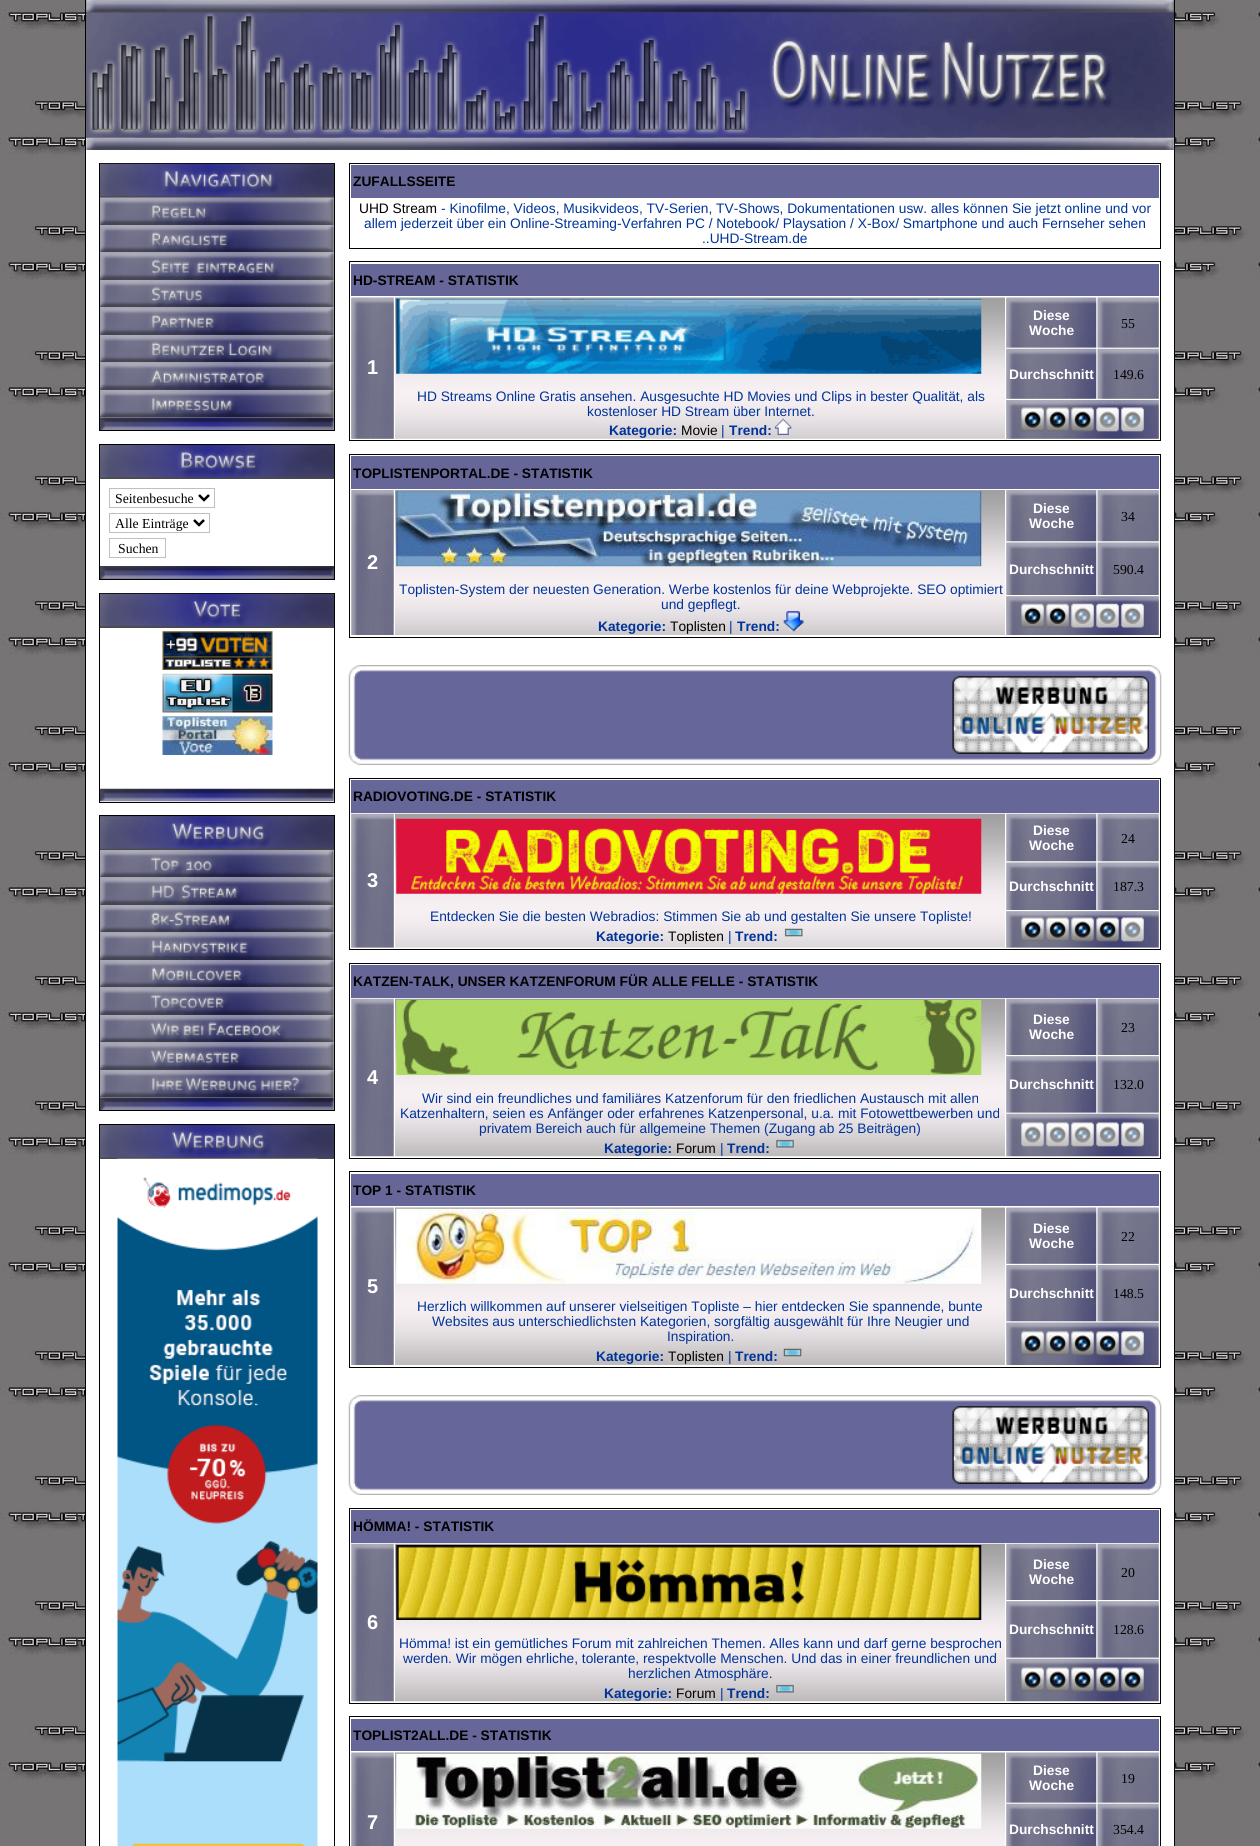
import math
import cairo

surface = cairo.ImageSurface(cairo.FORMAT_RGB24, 1260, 1846)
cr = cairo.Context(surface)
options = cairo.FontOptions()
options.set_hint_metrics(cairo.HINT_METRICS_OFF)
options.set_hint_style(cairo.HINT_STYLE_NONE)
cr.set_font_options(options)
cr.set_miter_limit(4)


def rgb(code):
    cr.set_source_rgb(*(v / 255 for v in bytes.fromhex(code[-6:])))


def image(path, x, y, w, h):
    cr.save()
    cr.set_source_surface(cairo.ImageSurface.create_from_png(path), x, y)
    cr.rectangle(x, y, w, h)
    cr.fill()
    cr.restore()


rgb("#ffffff")
cr.paint()
image("img/1.png", 0, 0, 1260, 1846)
for x, y, w, h, color in [
    (1174, 0, 1, 1846, "#000000"),
    (85, 0, 1, 1846, "#000000"),
    (86, 0, 1088, 13, "#4a4a4a"),
]:
    rgb(color)
    cr.rectangle(x, y, w, h)
    cr.fill()
image("img/2.png", 86, 0, 1088, 13)
rgb("#ffffff")
cr.rectangle(86, 138, 1088, 1708)
cr.fill()
image("img/4.png", 86, 137, 1088, 13)
image("img/3.png", 86, 12, 1088, 126)
cr.rectangle(99.5, 163.5, 235, 267)
rgb("#000000")
cr.set_line_width(1)
cr.stroke()
rgb("#4a4a4a")
cr.rectangle(100, 164, 234, 34)
cr.fill()
image("img/5.png", 100, 163, 234, 34)
image("img/6.png", 100, 197, 234, 28)
image("img/7.png", 100, 225, 234, 28)
image("img/8.png", 100, 252, 234, 28)
image("img/9.png", 100, 280, 234, 28)
image("img/10.png", 100, 307, 234, 28)
image("img/11.png", 100, 335, 234, 28)
image("img/12.png", 100, 362, 234, 28)
image("img/14.png", 100, 417, 234, 13)
image("img/13.png", 100, 390, 234, 28)
cr.rectangle(99.5, 444.5, 235, 135)
rgb("#000000")
cr.stroke()
rgb("#4a4a4a")
cr.rectangle(100, 445, 234, 34)
cr.fill()
image("img/15.png", 100, 445, 234, 33)
cr.rectangle(109.5, 488.5, 105, 19)
rgb("#c0c0c0")
cr.stroke()
cr.new_path()
cr.move_to(199, 495)
cr.line_to(204, 500)
cr.line_to(209, 495)
rgb("#000000")
cr.set_line_width(2.5)
cr.stroke()
cr.rectangle(109.5, 513.5, 100, 19)
rgb("#c0c0c0")
cr.set_line_width(1)
cr.stroke()
cr.new_path()
cr.move_to(194, 520)
cr.line_to(199, 525)
cr.line_to(204, 520)
rgb("#000000")
cr.set_line_width(2.5)
cr.stroke()
cr.rectangle(109.5, 538.5, 56, 19)
rgb("#c0c0c0")
cr.set_line_width(1)
cr.stroke()
rgb("#4a4a4a")
cr.rectangle(100, 566, 234, 13)
cr.fill()
image("img/16.png", 100, 566, 234, 13)
cr.rectangle(99.5, 593.5, 235, 209)
rgb("#000000")
cr.stroke()
rgb("#4a4a4a")
cr.rectangle(100, 594, 234, 34)
cr.fill()
image("img/17.png", 100, 593, 234, 34)
image("img/18.png", 162, 631, 111, 39)
image("img/19.png", 162, 673, 111, 40)
image("img/20.png", 162, 716, 111, 39)
image("img/21.png", 100, 788, 234, 14)
cr.rectangle(99.5, 815.5, 235, 295)
rgb("#000000")
cr.stroke()
rgb("#4a4a4a")
cr.rectangle(100, 816, 234, 34)
cr.fill()
image("img/22.png", 100, 816, 234, 33)
image("img/23.png", 100, 850, 234, 28)
image("img/24.png", 100, 877, 234, 28)
image("img/25.png", 100, 905, 234, 28)
image("img/26.png", 100, 932, 234, 28)
image("img/27.png", 100, 960, 234, 28)
image("img/28.png", 100, 987, 234, 28)
image("img/29.png", 100, 1015, 234, 28)
image("img/30.png", 100, 1042, 234, 28)
image("img/14.png", 100, 1097, 234, 13)
image("img/31.png", 100, 1070, 234, 28)
cr.rectangle(99.5, 1124.5, 235, 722)
rgb("#000000")
cr.stroke()
rgb("#4a4a4a")
cr.rectangle(100, 1125, 234, 34)
cr.fill()
image("img/32.png", 100, 1125, 234, 33)
image("img/33.png", 117, 1158, 201, 688)
cr.rectangle(349.5, 163.5, 811, 85)
rgb("#000000")
cr.stroke()
rgb("#666699")
cr.rectangle(351, 165, 808, 33)
cr.fill()
cr.rectangle(349.5, 261.5, 811, 179)
rgb("#000000")
cr.stroke()
rgb("#666699")
cr.rectangle(351, 264, 808, 32)
cr.fill()
rgb("#dcdcdc")
cr.rectangle(1006, 298, 90, 50)
cr.fill()
image("img/34.png", 1006, 297, 91, 51)
cr.rectangle(1098, 298, 61, 50)
cr.fill()
image("img/35.png", 1097, 297, 62, 51)
cr.rectangle(351, 298, 43, 141)
cr.fill()
image("img/36.png", 351, 297, 43, 142)
image("img/37.png", 395, 297, 610, 142)
image("img/38.png", 396, 298, 586, 76)
image("img/39.png", 775, 418, 17, 17)
cr.rectangle(1006, 349, 90, 50)
cr.fill()
image("img/40.png", 1006, 348, 91, 51)
cr.rectangle(1098, 349, 61, 50)
cr.fill()
image("img/41.png", 1097, 348, 62, 51)
cr.rectangle(1006, 400, 153, 39)
cr.fill()
image("img/42.png", 1006, 400, 153, 39)
image("img/43.png", 1021, 407, 123, 25)
cr.rectangle(349.5, 454.5, 811, 183)
rgb("#000000")
cr.stroke()
rgb("#666699")
cr.rectangle(351, 456, 808, 33)
cr.fill()
image("img/44.png", 1006, 490, 91, 52)
image("img/45.png", 1097, 490, 62, 52)
image("img/46.png", 351, 490, 43, 145)
image("img/47.png", 395, 490, 610, 145)
image("img/48.png", 396, 491, 586, 76)
image("img/49.png", 783, 611, 21, 21)
image("img/50.png", 1006, 542, 91, 53)
image("img/51.png", 1097, 542, 62, 53)
rgb("#dcdcdc")
cr.rectangle(1006, 596, 153, 39)
cr.fill()
image("img/52.png", 1006, 596, 153, 39)
image("img/53.png", 1021, 603, 123, 25)
image("img/54.png", 348, 665, 814, 100)
cr.rectangle(349.5, 778.5, 811, 171)
rgb("#000000")
cr.stroke()
rgb("#666699")
cr.rectangle(351, 780, 808, 33)
cr.fill()
image("img/55.png", 1006, 813, 91, 49)
image("img/56.png", 1097, 813, 62, 49)
rgb("#dcdcdc")
cr.rectangle(351, 814, 43, 134)
cr.fill()
image("img/57.png", 351, 813, 43, 135)
image("img/58.png", 395, 813, 610, 135)
image("img/59.png", 396, 818, 586, 76)
image("img/60.png", 784, 928, 19, 9)
image("img/61.png", 1006, 862, 91, 48)
image("img/62.png", 1097, 862, 62, 48)
cr.rectangle(1006, 911, 153, 37)
cr.fill()
image("img/63.png", 1006, 911, 153, 37)
image("img/64.png", 1021, 917, 123, 25)
cr.rectangle(349.5, 963.5, 811, 195)
rgb("#000000")
cr.stroke()
rgb("#666699")
cr.rectangle(351, 965, 808, 33)
cr.fill()
image("img/65.png", 1006, 998, 91, 57)
image("img/66.png", 1097, 998, 62, 57)
image("img/67.png", 351, 998, 43, 159)
image("img/68.png", 395, 998, 610, 159)
image("img/69.png", 396, 1000, 586, 75)
image("img/70.png", 776, 1139, 18, 9)
rgb("#dcdcdc")
cr.rectangle(1006, 1056, 90, 57)
cr.fill()
image("img/71.png", 1006, 1056, 91, 57)
cr.rectangle(1098, 1056, 61, 57)
cr.fill()
image("img/72.png", 1097, 1056, 62, 57)
image("img/73.png", 1006, 1113, 153, 44)
image("img/74.png", 1021, 1122, 123, 25)
cr.rectangle(349.5, 1171.5, 811, 196)
rgb("#000000")
cr.stroke()
rgb("#666699")
cr.rectangle(351, 1174, 808, 32)
cr.fill()
rgb("#dcdcdc")
cr.rectangle(1006, 1208, 90, 56)
cr.fill()
image("img/75.png", 1006, 1207, 91, 57)
cr.rectangle(1098, 1208, 61, 56)
cr.fill()
image("img/76.png", 1097, 1207, 62, 57)
image("img/77.png", 351, 1207, 43, 158)
image("img/78.png", 395, 1207, 610, 158)
image("img/79.png", 396, 1208, 586, 76)
image("img/80.png", 783, 1348, 19, 9)
image("img/81.png", 1006, 1265, 91, 57)
image("img/82.png", 1097, 1265, 62, 57)
image("img/83.png", 1006, 1322, 153, 43)
image("img/84.png", 1021, 1331, 123, 25)
image("img/54.png", 348, 1395, 814, 100)
cr.rectangle(349.5, 1508.5, 811, 195)
rgb("#000000")
cr.stroke()
rgb("#666699")
cr.rectangle(351, 1510, 808, 33)
cr.fill()
image("img/65.png", 1006, 1543, 91, 57)
image("img/66.png", 1097, 1543, 62, 57)
image("img/85.png", 351, 1543, 43, 159)
image("img/86.png", 395, 1543, 610, 159)
image("img/87.png", 396, 1545, 586, 75)
image("img/70.png", 776, 1684, 18, 9)
rgb("#dcdcdc")
cr.rectangle(1006, 1601, 90, 57)
cr.fill()
image("img/71.png", 1006, 1601, 91, 57)
cr.rectangle(1098, 1601, 61, 57)
cr.fill()
image("img/72.png", 1097, 1601, 62, 57)
image("img/73.png", 1006, 1658, 153, 44)
image("img/88.png", 1021, 1667, 123, 25)
cr.rectangle(349.5, 1716.5, 811, 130)
rgb("#000000")
cr.stroke()
rgb("#666699")
cr.rectangle(351, 1719, 808, 32)
cr.fill()
image("img/89.png", 395, 1752, 610, 94)
image("img/90.png", 396, 1753, 586, 76)
rgb("#dcdcdc")
cr.rectangle(1006, 1753, 90, 50)
cr.fill()
image("img/34.png", 1006, 1752, 91, 51)
cr.rectangle(1098, 1753, 61, 50)
cr.fill()
image("img/35.png", 1097, 1752, 62, 51)
image("img/91.png", 351, 1752, 43, 94)
image("img/92.png", 1006, 1803, 91, 43)
image("img/93.png", 1097, 1803, 62, 43)
cr.select_font_face("Liberation Serif")
cr.set_font_size(13.75)
rgb("#000000")
for x, y, s in [
    (115, 503, "Seitenbesuche"),
    (115, 528, "Alle Einträge"),
    (118, 553, "Suchen"),
]:
    cr.move_to(x, y)
    cr.show_text(s)
cr.select_font_face("Liberation Sans", cairo.FONT_SLANT_NORMAL, cairo.FONT_WEIGHT_BOLD)
cr.move_to(353, 186)
cr.show_text("ZUFALLSSEITE")
cr.select_font_face("Liberation Sans")
cr.move_to(359, 213)
cr.show_text("UHD Stream")
rgb("#003399")
for x, y, s in [
    (441, 213, "- Kinofilme, Videos, Musikvideos, TV-Serien, TV-Shows, Dokumentationen usw. alles können Sie jetzt online und vor"),
    (364, 228, "allem jederzeit über ein Online-Streaming-Verfahren PC / Notebook/ Playsation / X-Box/ Smartphone und auch Fernseher sehen"),
    (702, 243, "..UHD-Stream.de"),
]:
    cr.move_to(x, y)
    cr.show_text(s)
cr.select_font_face("Liberation Sans", cairo.FONT_SLANT_NORMAL, cairo.FONT_WEIGHT_BOLD)
rgb("#000000")
cr.move_to(353, 285)
cr.show_text("HD-STREAM - STATISTIK")
rgb("#ffffff")
cr.move_to(1033, 320)
cr.show_text("Diese")
cr.move_to(1029, 335)
cr.show_text("Woche")
cr.select_font_face("Liberation Serif")
rgb("#000000")
cr.move_to(1121, 328)
cr.show_text("55")
cr.select_font_face("Liberation Sans", cairo.FONT_SLANT_NORMAL, cairo.FONT_WEIGHT_BOLD)
cr.set_font_size(20)
rgb("#ffffff")
cr.move_to(367, 374)
cr.show_text("1")
cr.select_font_face("Liberation Sans")
cr.set_font_size(13.75)
rgb("#003399")
cr.move_to(417, 401)
cr.show_text("HD Streams Online Gratis ansehen. Ausgesuchte HD Movies und Clips in bester Qualität, als")
cr.move_to(587, 416)
cr.show_text("kostenloser HD Stream über Internet.")
cr.select_font_face("Liberation Sans", cairo.FONT_SLANT_NORMAL, cairo.FONT_WEIGHT_BOLD)
cr.move_to(609, 435)
cr.show_text("Kategorie:")
cr.select_font_face("Liberation Sans")
rgb("#000000")
cr.move_to(681, 435)
cr.show_text("Movie")
rgb("#003399")
cr.move_to(721, 435)
cr.show_text("|")
cr.select_font_face("Liberation Sans", cairo.FONT_SLANT_NORMAL, cairo.FONT_WEIGHT_BOLD)
cr.move_to(729, 435)
cr.show_text("Trend:")
rgb("#ffffff")
cr.move_to(1009, 379)
cr.show_text("Durchschnitt")
cr.select_font_face("Liberation Serif")
rgb("#000000")
cr.move_to(1113, 379)
cr.show_text("149.6")
cr.select_font_face("Liberation Sans", cairo.FONT_SLANT_NORMAL, cairo.FONT_WEIGHT_BOLD)
cr.move_to(353, 478)
cr.show_text("TOPLISTENPORTAL.DE - STATISTIK")
rgb("#ffffff")
cr.move_to(1033, 513)
cr.show_text("Diese")
cr.move_to(1029, 528)
cr.show_text("Woche")
cr.select_font_face("Liberation Serif")
rgb("#000000")
cr.move_to(1121, 521)
cr.show_text("34")
cr.select_font_face("Liberation Sans", cairo.FONT_SLANT_NORMAL, cairo.FONT_WEIGHT_BOLD)
cr.set_font_size(20)
rgb("#ffffff")
cr.move_to(367, 569)
cr.show_text("2")
cr.select_font_face("Liberation Sans")
cr.set_font_size(13.75)
rgb("#003399")
cr.move_to(399, 594)
cr.show_text("Toplisten-System der neuesten Generation. Werbe kostenlos für deine Webprojekte. SEO optimiert")
cr.move_to(661, 609)
cr.show_text("und gepflegt.")
cr.select_font_face("Liberation Sans", cairo.FONT_SLANT_NORMAL, cairo.FONT_WEIGHT_BOLD)
cr.move_to(598, 631)
cr.show_text("Kategorie:")
cr.select_font_face("Liberation Sans")
rgb("#000000")
cr.move_to(670, 631)
cr.show_text("Toplisten")
rgb("#003399")
cr.move_to(729, 631)
cr.show_text("|")
cr.select_font_face("Liberation Sans", cairo.FONT_SLANT_NORMAL, cairo.FONT_WEIGHT_BOLD)
cr.move_to(737, 631)
cr.show_text("Trend:")
rgb("#ffffff")
cr.move_to(1009, 574)
cr.show_text("Durchschnitt")
cr.select_font_face("Liberation Serif")
rgb("#000000")
cr.move_to(1113, 574)
cr.show_text("590.4")
cr.select_font_face("Liberation Sans", cairo.FONT_SLANT_NORMAL, cairo.FONT_WEIGHT_BOLD)
cr.move_to(353, 801)
cr.show_text("RADIOVOTING.DE - STATISTIK")
rgb("#ffffff")
cr.move_to(1033, 835)
cr.show_text("Diese")
cr.move_to(1029, 850)
cr.show_text("Woche")
cr.select_font_face("Liberation Serif")
rgb("#000000")
cr.move_to(1121, 843)
cr.show_text("24")
cr.select_font_face("Liberation Sans", cairo.FONT_SLANT_NORMAL, cairo.FONT_WEIGHT_BOLD)
cr.set_font_size(20)
rgb("#ffffff")
cr.move_to(367, 887)
cr.show_text("3")
cr.select_font_face("Liberation Sans")
cr.set_font_size(13.75)
rgb("#003399")
cr.move_to(430, 921)
cr.show_text("Entdecken Sie die besten Webradios: Stimmen Sie ab und gestalten Sie unsere Topliste!")
cr.select_font_face("Liberation Sans", cairo.FONT_SLANT_NORMAL, cairo.FONT_WEIGHT_BOLD)
cr.move_to(596, 941)
cr.show_text("Kategorie:")
cr.select_font_face("Liberation Sans")
rgb("#000000")
cr.move_to(668, 941)
cr.show_text("Toplisten")
rgb("#003399")
cr.move_to(728, 941)
cr.show_text("|")
cr.select_font_face("Liberation Sans", cairo.FONT_SLANT_NORMAL, cairo.FONT_WEIGHT_BOLD)
cr.move_to(735, 941)
cr.show_text("Trend:")
rgb("#ffffff")
cr.move_to(1009, 891)
cr.show_text("Durchschnitt")
cr.select_font_face("Liberation Serif")
rgb("#000000")
cr.move_to(1113, 891)
cr.show_text("187.3")
cr.select_font_face("Liberation Sans", cairo.FONT_SLANT_NORMAL, cairo.FONT_WEIGHT_BOLD)
cr.move_to(353, 986)
cr.show_text("KATZEN-TALK, UNSER KATZENFORUM FÜR ALLE FELLE - STATISTIK")
rgb("#ffffff")
cr.move_to(1033, 1024)
cr.show_text("Diese")
cr.move_to(1029, 1039)
cr.show_text("Woche")
cr.select_font_face("Liberation Serif")
rgb("#000000")
cr.move_to(1121, 1032)
cr.show_text("23")
cr.select_font_face("Liberation Sans", cairo.FONT_SLANT_NORMAL, cairo.FONT_WEIGHT_BOLD)
cr.set_font_size(20)
rgb("#ffffff")
cr.move_to(367, 1084)
cr.show_text("4")
cr.select_font_face("Liberation Sans")
cr.set_font_size(13.75)
rgb("#003399")
for x, y, s in [
    (422, 1103, "Wir sind ein freundliches und familiäres Katzenforum für den friedlichen Austausch mit allen"),
    (400, 1118, "Katzenhaltern, seien es Anfänger oder erfahrenes Katzenpersonal, u.a. mit Fotowettbewerben und"),
    (479, 1133, "privatem Bereich auch für allgemeine Themen (Zugang ab 25 Beiträgen)"),
]:
    cr.move_to(x, y)
    cr.show_text(s)
cr.select_font_face("Liberation Sans", cairo.FONT_SLANT_NORMAL, cairo.FONT_WEIGHT_BOLD)
cr.move_to(604, 1153)
cr.show_text("Kategorie:")
cr.select_font_face("Liberation Sans")
rgb("#000000")
cr.move_to(676, 1153)
cr.show_text("Forum")
rgb("#003399")
cr.move_to(720, 1153)
cr.show_text("|")
cr.select_font_face("Liberation Sans", cairo.FONT_SLANT_NORMAL, cairo.FONT_WEIGHT_BOLD)
cr.move_to(727, 1153)
cr.show_text("Trend:")
rgb("#ffffff")
cr.move_to(1009, 1089)
cr.show_text("Durchschnitt")
cr.select_font_face("Liberation Serif")
rgb("#000000")
cr.move_to(1113, 1089)
cr.show_text("132.0")
cr.select_font_face("Liberation Sans", cairo.FONT_SLANT_NORMAL, cairo.FONT_WEIGHT_BOLD)
cr.move_to(353, 1195)
cr.show_text("TOP 1 - STATISTIK")
rgb("#ffffff")
cr.move_to(1033, 1233)
cr.show_text("Diese")
cr.move_to(1029, 1248)
cr.show_text("Woche")
cr.select_font_face("Liberation Serif")
rgb("#000000")
cr.move_to(1121, 1241)
cr.show_text("22")
cr.select_font_face("Liberation Sans", cairo.FONT_SLANT_NORMAL, cairo.FONT_WEIGHT_BOLD)
cr.set_font_size(20)
rgb("#ffffff")
cr.move_to(367, 1293)
cr.show_text("5")
cr.select_font_face("Liberation Sans")
cr.set_font_size(13.75)
rgb("#003399")
for x, y, s in [
    (417, 1311, "Herzlich willkommen auf unserer vielseitigen Topliste – hier entdecken Sie spannende, bunte"),
    (432, 1326, "Websites aus unterschiedlichsten Kategorien, sorgfältig ausgewählt für Ihre Neugier und"),
    (667, 1341, "Inspiration."),
]:
    cr.move_to(x, y)
    cr.show_text(s)
cr.select_font_face("Liberation Sans", cairo.FONT_SLANT_NORMAL, cairo.FONT_WEIGHT_BOLD)
cr.move_to(596, 1361)
cr.show_text("Kategorie:")
cr.select_font_face("Liberation Sans")
rgb("#000000")
cr.move_to(668, 1361)
cr.show_text("Toplisten")
rgb("#003399")
cr.move_to(728, 1361)
cr.show_text("|")
cr.select_font_face("Liberation Sans", cairo.FONT_SLANT_NORMAL, cairo.FONT_WEIGHT_BOLD)
cr.move_to(735, 1361)
cr.show_text("Trend:")
rgb("#ffffff")
cr.move_to(1009, 1298)
cr.show_text("Durchschnitt")
cr.select_font_face("Liberation Serif")
rgb("#000000")
cr.move_to(1113, 1298)
cr.show_text("148.5")
cr.select_font_face("Liberation Sans", cairo.FONT_SLANT_NORMAL, cairo.FONT_WEIGHT_BOLD)
cr.move_to(353, 1531)
cr.show_text("HÖMMA! - STATISTIK")
rgb("#ffffff")
cr.move_to(1033, 1569)
cr.show_text("Diese")
cr.move_to(1029, 1584)
cr.show_text("Woche")
cr.select_font_face("Liberation Serif")
rgb("#000000")
cr.move_to(1121, 1577)
cr.show_text("20")
cr.select_font_face("Liberation Sans", cairo.FONT_SLANT_NORMAL, cairo.FONT_WEIGHT_BOLD)
cr.set_font_size(20)
rgb("#ffffff")
cr.move_to(367, 1629)
cr.show_text("6")
cr.select_font_face("Liberation Sans")
cr.set_font_size(13.75)
rgb("#003399")
for x, y, s in [
    (399, 1648, "Hömma! ist ein gemütliches Forum mit zahlreichen Themen. Alles kann und darf gerne besprochen"),
    (403, 1663, "werden. Wir mögen ehrliche, tolerante, respektvolle Menschen. Und das in einer freundlichen und"),
    (628, 1678, "herzlichen Atmosphäre."),
]:
    cr.move_to(x, y)
    cr.show_text(s)
cr.select_font_face("Liberation Sans", cairo.FONT_SLANT_NORMAL, cairo.FONT_WEIGHT_BOLD)
cr.move_to(604, 1698)
cr.show_text("Kategorie:")
cr.select_font_face("Liberation Sans")
rgb("#000000")
cr.move_to(676, 1698)
cr.show_text("Forum")
rgb("#003399")
cr.move_to(720, 1698)
cr.show_text("|")
cr.select_font_face("Liberation Sans", cairo.FONT_SLANT_NORMAL, cairo.FONT_WEIGHT_BOLD)
cr.move_to(727, 1698)
cr.show_text("Trend:")
rgb("#ffffff")
cr.move_to(1009, 1634)
cr.show_text("Durchschnitt")
cr.select_font_face("Liberation Serif")
rgb("#000000")
cr.move_to(1113, 1634)
cr.show_text("128.6")
cr.select_font_face("Liberation Sans", cairo.FONT_SLANT_NORMAL, cairo.FONT_WEIGHT_BOLD)
cr.move_to(353, 1740)
cr.show_text("TOPLIST2ALL.DE - STATISTIK")
rgb("#ffffff")
cr.move_to(1033, 1775)
cr.show_text("Diese")
cr.move_to(1029, 1790)
cr.show_text("Woche")
cr.select_font_face("Liberation Serif")
rgb("#000000")
cr.move_to(1121, 1783)
cr.show_text("19")
cr.select_font_face("Liberation Sans", cairo.FONT_SLANT_NORMAL, cairo.FONT_WEIGHT_BOLD)
cr.set_font_size(20)
rgb("#ffffff")
cr.move_to(367, 1829)
cr.show_text("7")
cr.set_font_size(13.75)
cr.move_to(1009, 1834)
cr.show_text("Durchschnitt")
cr.select_font_face("Liberation Serif")
rgb("#000000")
cr.move_to(1113, 1834)
cr.show_text("354.4")
surface.write_to_png("page.png")
